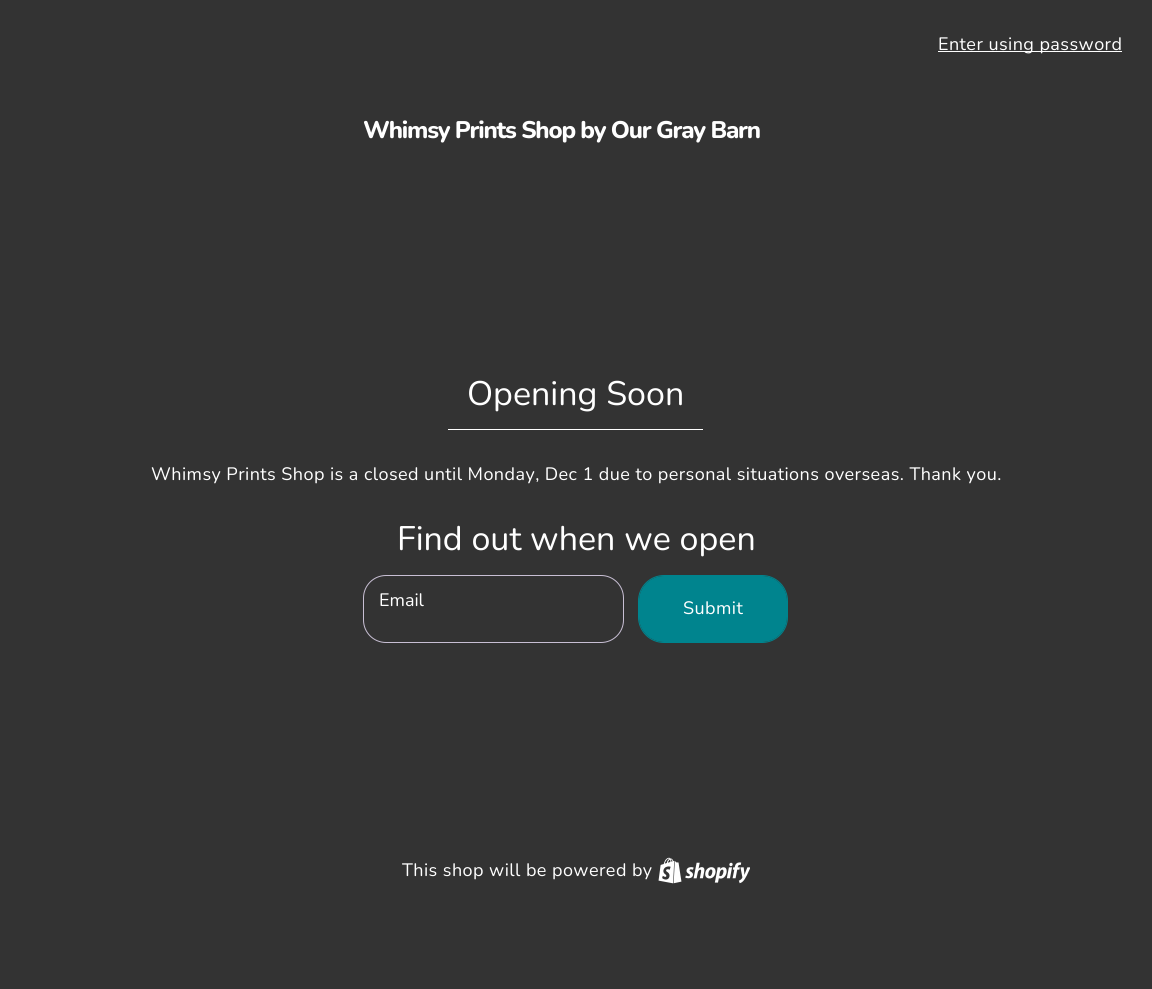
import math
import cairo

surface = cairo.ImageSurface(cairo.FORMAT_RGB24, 1152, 989)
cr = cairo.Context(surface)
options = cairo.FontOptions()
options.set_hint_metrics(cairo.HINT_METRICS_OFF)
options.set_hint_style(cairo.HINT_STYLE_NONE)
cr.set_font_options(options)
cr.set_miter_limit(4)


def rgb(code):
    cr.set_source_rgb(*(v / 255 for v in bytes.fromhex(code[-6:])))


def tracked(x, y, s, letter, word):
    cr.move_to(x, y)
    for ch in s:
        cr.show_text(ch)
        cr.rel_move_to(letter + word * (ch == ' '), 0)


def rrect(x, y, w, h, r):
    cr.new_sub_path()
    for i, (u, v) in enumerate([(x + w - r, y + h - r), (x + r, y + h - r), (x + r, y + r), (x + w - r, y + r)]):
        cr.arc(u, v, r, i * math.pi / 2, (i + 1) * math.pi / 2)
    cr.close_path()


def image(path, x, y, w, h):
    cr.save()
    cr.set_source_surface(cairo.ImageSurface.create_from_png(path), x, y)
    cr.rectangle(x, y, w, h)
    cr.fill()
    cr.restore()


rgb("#333333")
cr.paint()
rgb("#ffffff")
cr.rectangle(938, 51, 184, 1)
cr.fill()
cr.rectangle(448, 429, 255, 1)
cr.fill()
rrect(363.5, 575.5, 260, 67, 22.5)
rgb("#c8bfd4")
cr.set_line_width(1)
cr.stroke()
rrect(638.5, 575.5, 149, 67, 25.5)
rgb("#00848e")
cr.stroke()
rrect(639, 576, 148, 66, 25)
cr.fill()
image("img/1.png", 658, 857, 92, 27)
cr.select_font_face("Nunito")
cr.set_font_size(18)
rgb("#ffffff")
tracked(938, 50, "Enter using password", 0.45, 0)
cr.select_font_face("Nunito ExtraBold")
cr.set_font_size(24)
tracked(363, 138, "Whimsy Prints Shop by Our Gray Barn", -1.2, 0)
cr.select_font_face("Nunito")
cr.set_font_size(34)
cr.move_to(467, 405)
cr.show_text("Opening Soon")
cr.set_font_size(18)
tracked(151, 480, "Whimsy Prints Shop is a closed until Monday, Dec 1 due to personal situations overseas. Thank you.", 0.45, 0)
cr.set_font_size(34)
cr.move_to(397, 550)
cr.show_text("Find out when we open")
cr.set_font_size(18)
cr.move_to(379, 606)
cr.show_text("Email")
tracked(683, 614, "Submit", 0.45, 0)
tracked(402, 876, "This shop will be powered by", 0.45, 0)
surface.write_to_png("page.png")
